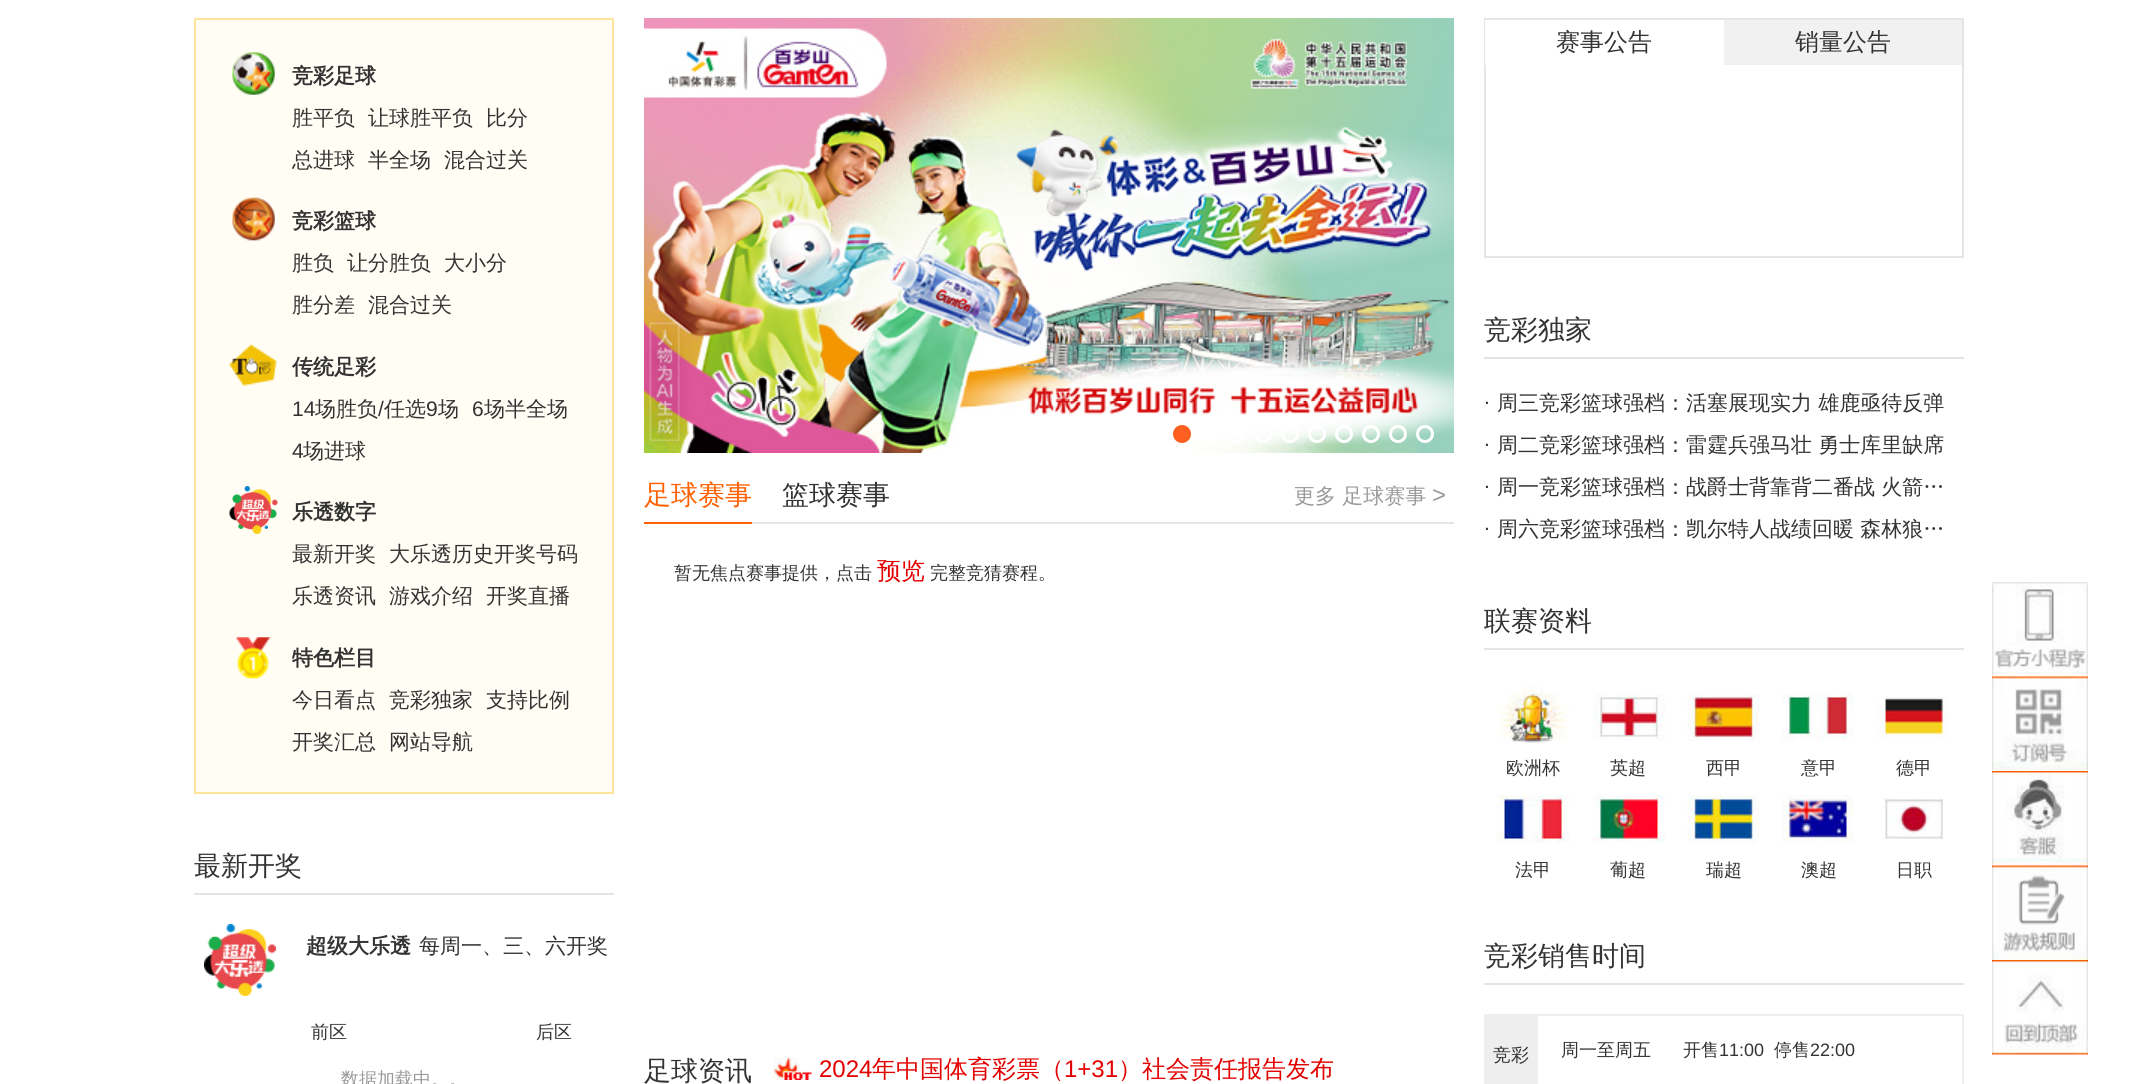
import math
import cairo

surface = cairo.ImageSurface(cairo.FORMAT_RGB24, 2156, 1084)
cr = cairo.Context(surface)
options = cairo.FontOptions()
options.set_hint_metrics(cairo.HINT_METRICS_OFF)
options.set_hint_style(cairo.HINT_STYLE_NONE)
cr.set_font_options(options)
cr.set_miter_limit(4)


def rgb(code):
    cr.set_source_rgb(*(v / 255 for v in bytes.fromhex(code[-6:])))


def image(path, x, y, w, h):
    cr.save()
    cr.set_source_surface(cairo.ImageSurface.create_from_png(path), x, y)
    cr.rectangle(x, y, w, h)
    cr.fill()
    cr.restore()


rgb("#ffffff")
cr.paint()
rgb("#fffdf4")
cr.rectangle(195, 19, 418, 774)
cr.fill_preserve()
rgb("#ffe49c")
cr.stroke()
image("img/1.png", 232, 52, 43, 43)
image("img/2.png", 232, 197, 43, 44)
image("img/3.png", 229, 344, 48, 42)
image("img/4.png", 229, 486, 49, 48)
image("img/5.png", 236, 637, 35, 42)
rgb("#e5e5e5")
cr.rectangle(194, 893, 420, 2)
cr.fill()
image("img/6.png", 204, 924, 72, 72)
image("img/7.png", 644, 18, 810, 435)
rgb("#fd5f20")
cr.arc(1182, 434, 9, 0, 2 * math.pi)
cr.fill()
cr.arc(1209, 434, 7.5, 0, 2 * math.pi)
rgb("#ffffff")
cr.set_line_width(3)
cr.stroke()
cr.arc(1236, 434, 7.5, 0, 2 * math.pi)
cr.stroke()
cr.arc(1263, 434, 7.5, 0, 2 * math.pi)
cr.stroke()
cr.arc(1290, 434, 7.5, 0, 2 * math.pi)
cr.stroke()
cr.arc(1317, 434, 7.5, 0, 2 * math.pi)
cr.stroke()
cr.arc(1344, 434, 7.5, 0, 2 * math.pi)
cr.stroke()
cr.arc(1371, 434, 7.5, 0, 2 * math.pi)
cr.stroke()
cr.arc(1398, 434, 7.5, 0, 2 * math.pi)
cr.stroke()
cr.arc(1425, 434, 7.5, 0, 2 * math.pi)
cr.stroke()
rgb("#e5e5e5")
cr.rectangle(752, 522, 702, 2)
cr.fill()
rgb("#ff6000")
cr.rectangle(644, 522, 108, 2)
cr.fill()
image("img/8.png", 774, 1057, 38, 23)
cr.rectangle(1485, 19, 478, 238)
rgb("#e5e5e5")
cr.set_line_width(2)
cr.stroke()
for x, y, w, h, color in [
    (1485, 20, 1, 45, "#ffffff"),
    (1724, 20, 238, 45, "#f1f1f1"),
    (1484, 357, 480, 2, "#e5e5e5"),
    (1484, 648, 480, 2, "#e5e5e5"),
]:
    rgb(color)
    cr.rectangle(x, y, w, h)
    cr.fill()
image("img/9.png", 1497, 685, 72, 58)
image("img/10.png", 1593, 693, 72, 48)
image("img/11.png", 1687, 693, 73, 48)
image("img/12.png", 1782, 693, 72, 48)
image("img/13.png", 1878, 696, 72, 45)
image("img/14.png", 1497, 795, 72, 48)
image("img/15.png", 1593, 795, 72, 48)
image("img/16.png", 1687, 795, 73, 49)
image("img/17.png", 1782, 795, 72, 48)
image("img/18.png", 1882, 797, 62, 43)
for x, y, w, h, color in [
    (1484, 983, 480, 2, "#e5e5e5"),
    (1962, 1014, 2, 70, "#eeeeee"),
    (1484, 1016, 54, 68, "#eeeeee"),
    (1484, 1014, 480, 2, "#eeeeee"),
]:
    rgb(color)
    cr.rectangle(x, y, w, h)
    cr.fill()
image("img/19.png", 1992, 582, 96, 95)
image("img/20.png", 1992, 676, 96, 95)
image("img/21.png", 1992, 771, 96, 95)
image("img/22.png", 1992, 865, 96, 95)
image("img/23.png", 1992, 960, 96, 95)
cr.select_font_face("WenQuanYi Zen Hei", cairo.FONT_SLANT_NORMAL, cairo.FONT_WEIGHT_BOLD)
cr.set_font_size(21)
rgb("#333333")
cr.move_to(292, 83)
cr.show_text("竞彩足球")
cr.select_font_face("WenQuanYi Zen Hei Medium")
for x, y, s in [
    (292, 125, "胜平负"),
    (368, 125, "让球胜平负"),
    (486, 125, "比分"),
    (292, 167, "总进球"),
    (368, 167, "半全场"),
    (444, 167, "混合过关"),
]:
    cr.move_to(x, y)
    cr.show_text(s)
cr.select_font_face("WenQuanYi Zen Hei", cairo.FONT_SLANT_NORMAL, cairo.FONT_WEIGHT_BOLD)
cr.move_to(292, 228)
cr.show_text("竞彩篮球")
cr.select_font_face("WenQuanYi Zen Hei Medium")
for x, y, s in [
    (292, 270, "胜负"),
    (347, 270, "让分胜负"),
    (444, 270, "大小分"),
    (292, 312, "胜分差"),
    (368, 312, "混合过关"),
]:
    cr.move_to(x, y)
    cr.show_text(s)
cr.select_font_face("WenQuanYi Zen Hei", cairo.FONT_SLANT_NORMAL, cairo.FONT_WEIGHT_BOLD)
cr.move_to(292, 374)
cr.show_text("传统足彩")
cr.select_font_face("Liberation Sans")
cr.move_to(292, 416)
cr.show_text("14")
cr.select_font_face("WenQuanYi Zen Hei Medium")
cr.move_to(315, 416)
cr.show_text("场胜负")
cr.select_font_face("Liberation Sans")
cr.move_to(378, 416)
cr.show_text("/")
cr.select_font_face("WenQuanYi Zen Hei Medium")
cr.move_to(384, 416)
cr.show_text("任选")
cr.select_font_face("Liberation Sans")
cr.move_to(426, 416)
cr.show_text("9")
cr.select_font_face("WenQuanYi Zen Hei Medium")
cr.move_to(438, 416)
cr.show_text("场")
cr.select_font_face("Liberation Sans")
cr.move_to(472, 416)
cr.show_text("6")
cr.select_font_face("WenQuanYi Zen Hei Medium")
cr.move_to(484, 416)
cr.show_text("场半全场")
cr.select_font_face("Liberation Sans")
cr.move_to(292, 458)
cr.show_text("4")
cr.select_font_face("WenQuanYi Zen Hei Medium")
cr.move_to(303, 458)
cr.show_text("场进球")
cr.select_font_face("WenQuanYi Zen Hei", cairo.FONT_SLANT_NORMAL, cairo.FONT_WEIGHT_BOLD)
cr.move_to(292, 519)
cr.show_text("乐透数字")
cr.select_font_face("WenQuanYi Zen Hei Medium")
for x, y, s in [
    (292, 561, "最新开奖"),
    (389, 561, "大乐透历史开奖号码"),
    (292, 603, "乐透资讯"),
    (389, 603, "游戏介绍"),
    (486, 603, "开奖直播"),
]:
    cr.move_to(x, y)
    cr.show_text(s)
cr.select_font_face("WenQuanYi Zen Hei", cairo.FONT_SLANT_NORMAL, cairo.FONT_WEIGHT_BOLD)
cr.move_to(292, 665)
cr.show_text("特色栏目")
cr.select_font_face("WenQuanYi Zen Hei Medium")
for x, y, s in [
    (292, 707, "今日看点"),
    (389, 707, "竞彩独家"),
    (486, 707, "支持比例"),
    (292, 749, "开奖汇总"),
    (389, 749, "网站导航"),
]:
    cr.move_to(x, y)
    cr.show_text(s)
cr.set_font_size(27)
cr.move_to(194, 875)
cr.show_text("最新开奖")
cr.select_font_face("WenQuanYi Zen Hei", cairo.FONT_SLANT_NORMAL, cairo.FONT_WEIGHT_BOLD)
cr.set_font_size(21)
cr.move_to(306, 953)
cr.show_text("超级大乐透")
cr.select_font_face("WenQuanYi Zen Hei Medium")
cr.move_to(419, 953)
cr.show_text("每周一、三、六开奖")
cr.set_font_size(18)
cr.move_to(311, 1038)
cr.show_text("前区")
cr.move_to(536, 1038)
cr.show_text("后区")
rgb("#999999")
cr.move_to(341, 1085)
cr.show_text("数据加载中。。")
cr.set_font_size(27)
rgb("#ff6000")
cr.move_to(644, 504)
cr.show_text("足球赛事")
rgb("#333333")
cr.move_to(782, 504)
cr.show_text("篮球赛事")
cr.set_font_size(21)
rgb("#999999")
cr.move_to(1294, 503)
cr.show_text("更多 足球赛事")
cr.select_font_face("Liberation Sans")
cr.set_font_size(24)
cr.move_to(1432, 503)
cr.show_text(">")
cr.select_font_face("WenQuanYi Zen Hei Medium")
cr.set_font_size(18)
rgb("#333333")
cr.move_to(674, 579)
cr.show_text("暂无焦点赛事提供，点击")
cr.set_font_size(24)
rgb("#e30000")
cr.move_to(877, 579)
cr.show_text("预览")
cr.set_font_size(18)
rgb("#333333")
cr.move_to(930, 579)
cr.show_text("完整竞猜赛程。")
cr.set_font_size(27)
cr.move_to(644, 1080)
cr.show_text("足球资讯")
cr.select_font_face("Liberation Sans")
cr.set_font_size(24)
rgb("#e30000")
cr.move_to(819, 1077)
cr.show_text("2024")
cr.select_font_face("WenQuanYi Zen Hei Medium")
cr.move_to(872, 1077)
cr.show_text("年中国体育彩票（")
cr.select_font_face("Liberation Sans")
cr.move_to(1064, 1077)
cr.show_text("1+31")
cr.select_font_face("WenQuanYi Zen Hei Medium")
cr.move_to(1118, 1077)
cr.show_text("）社会责任报告发布")
rgb("#333333")
cr.move_to(1556, 50)
cr.show_text("赛事公告")
cr.move_to(1795, 50)
cr.show_text("销量公告")
cr.set_font_size(27)
cr.move_to(1484, 339)
cr.show_text("竞彩独家")
cr.select_font_face("Liberation Sans")
cr.set_font_size(21)
cr.move_to(1484, 404)
cr.show_text(".")
cr.select_font_face("WenQuanYi Zen Hei Medium")
cr.move_to(1497, 410)
cr.show_text("周三竞彩篮球强档：活塞展现实力 雄鹿亟待反弹")
cr.select_font_face("Liberation Sans")
cr.move_to(1484, 446)
cr.show_text(".")
cr.select_font_face("WenQuanYi Zen Hei Medium")
cr.move_to(1497, 452)
cr.show_text("周二竞彩篮球强档：雷霆兵强马壮 勇士库里缺席")
cr.select_font_face("Liberation Sans")
cr.move_to(1484, 488)
cr.show_text(".")
cr.select_font_face("WenQuanYi Zen Hei Medium")
cr.move_to(1497, 494)
cr.show_text("周一竞彩篮球强档：战爵士背靠背二番战 火箭…")
cr.select_font_face("Liberation Sans")
cr.move_to(1484, 530)
cr.show_text(".")
cr.select_font_face("WenQuanYi Zen Hei Medium")
cr.move_to(1497, 536)
cr.show_text("周六竞彩篮球强档：凯尔特人战绩回暖 森林狼…")
cr.set_font_size(27)
cr.move_to(1484, 630)
cr.show_text("联赛资料")
cr.set_font_size(18)
for x, y, s in [
    (1506, 774, "欧洲杯"),
    (1610, 774, "英超"),
    (1706, 774, "西甲"),
    (1801, 774, "意甲"),
    (1896, 774, "德甲"),
    (1515, 876, "法甲"),
    (1610, 876, "葡超"),
    (1706, 876, "瑞超"),
    (1801, 876, "澳超"),
    (1896, 876, "日职"),
]:
    cr.move_to(x, y)
    cr.show_text(s)
cr.set_font_size(27)
cr.move_to(1484, 965)
cr.show_text("竞彩销售时间")
cr.set_font_size(18)
for x, y, s in [
    (1493, 1061, "竞彩"),
    (1561, 1056, "周一至周五"),
    (1683, 1056, "开售"),
]:
    cr.move_to(x, y)
    cr.show_text(s)
cr.select_font_face("Liberation Sans")
cr.move_to(1719, 1056)
cr.show_text("11:00")
cr.select_font_face("WenQuanYi Zen Hei Medium")
cr.move_to(1774, 1056)
cr.show_text("停售")
cr.select_font_face("Liberation Sans")
cr.move_to(1810, 1056)
cr.show_text("22:00")
surface.write_to_png("page.png")
